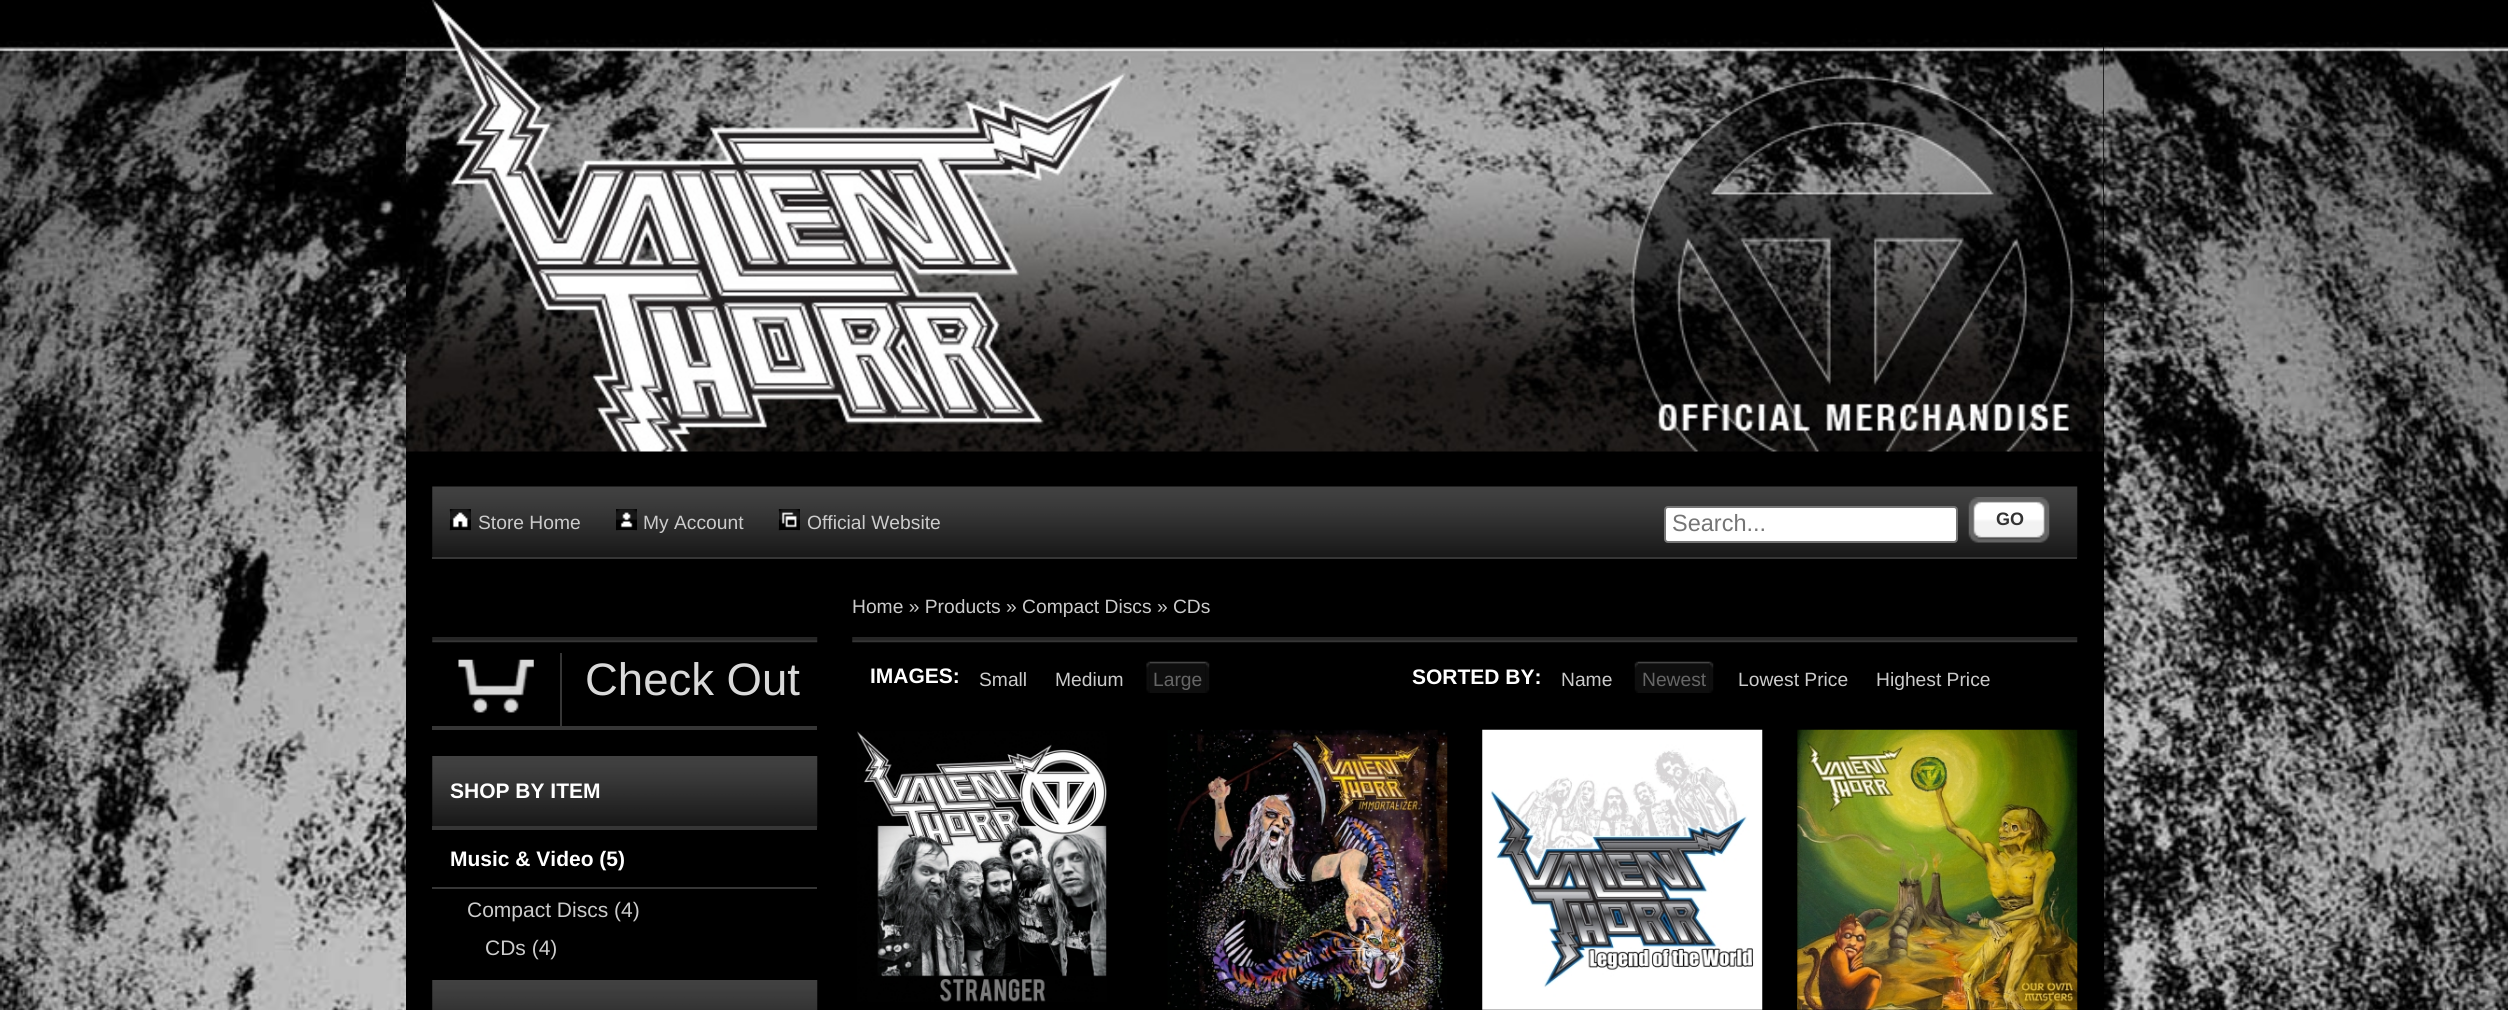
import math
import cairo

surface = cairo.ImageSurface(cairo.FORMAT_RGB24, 2508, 1010)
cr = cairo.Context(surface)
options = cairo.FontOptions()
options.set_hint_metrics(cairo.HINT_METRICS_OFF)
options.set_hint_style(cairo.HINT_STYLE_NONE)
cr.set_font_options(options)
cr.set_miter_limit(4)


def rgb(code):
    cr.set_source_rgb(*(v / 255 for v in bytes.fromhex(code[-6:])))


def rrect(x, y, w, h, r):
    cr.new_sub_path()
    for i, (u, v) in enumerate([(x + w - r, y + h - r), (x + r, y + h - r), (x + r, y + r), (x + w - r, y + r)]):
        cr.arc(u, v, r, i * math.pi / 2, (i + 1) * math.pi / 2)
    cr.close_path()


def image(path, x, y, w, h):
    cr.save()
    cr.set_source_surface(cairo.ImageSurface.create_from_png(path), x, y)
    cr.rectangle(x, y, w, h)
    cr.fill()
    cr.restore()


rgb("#000000")
cr.paint()
image("img/1.png", 0, 41, 2508, 969)
rgb("#000000")
cr.rectangle(406, 41, 1698, 969)
cr.fill()
image("img/2.png", 406, 0, 1698, 452)
image("img/3.png", 432, 486, 1646, 73)
rgb("#363636")
cr.rectangle(432, 557, 1645, 2)
cr.fill()
rgb("#000000")
cr.rectangle(450, 509, 21, 21)
cr.fill()
image("img/4.png", 449, 509, 22, 22)
cr.rectangle(616, 509, 21, 21)
cr.fill()
image("img/5.png", 616, 509, 21, 22)
cr.rectangle(779, 509, 21, 21)
cr.fill()
image("img/6.png", 778, 509, 22, 22)
rgb("#ffffff")
rrect(1665, 507, 292, 35, 3)
cr.fill_preserve()
rgb("#767676")
cr.stroke()
image("img/7.png", 1968, 497, 13, 46)
image("img/8.png", 1981, 497, 56, 46)
image("img/9.png", 2037, 497, 13, 46)
image("img/10.png", 852, 637, 1226, 6)
image("img/11.png", 1146, 661, 4, 32)
image("img/12.png", 1149, 661, 57, 32)
image("img/13.png", 1205, 661, 5, 32)
image("img/14.png", 1634, 661, 4, 32)
image("img/15.png", 1638, 661, 72, 32)
image("img/13.png", 1709, 661, 5, 32)
image("img/16.png", 857, 731, 250, 271)
image("img/17.png", 1167, 729, 281, 281)
image("img/18.png", 1482, 729, 281, 281)
image("img/19.png", 1797, 729, 281, 281)
image("img/20.png", 432, 637, 386, 6)
rgb("#363636")
cr.rectangle(432, 726, 385, 4)
cr.fill()
image("img/21.png", 458, 659, 76, 54)
cr.rectangle(560, 653, 2, 73)
cr.fill()
image("img/22.png", 432, 756, 386, 72)
cr.rectangle(432, 826, 385, 4)
cr.fill()
cr.rectangle(432, 887, 385, 2)
cr.fill()
image("img/23.png", 432, 980, 386, 30)
cr.select_font_face("Liberation Sans")
cr.set_font_size(19.25)
rgb("#cccccc")
for x, y, s in [
    (478, 529, "Store Home"),
    (643, 529, "My Account"),
    (807, 529, "Official Website"),
]:
    cr.move_to(x, y)
    cr.show_text(s)
cr.set_font_size(23.5)
rgb("#757575")
cr.move_to(1672, 531)
cr.show_text("Search...")
cr.select_font_face("Liberation Sans", cairo.FONT_SLANT_NORMAL, cairo.FONT_WEIGHT_BOLD)
cr.set_font_size(18)
rgb("#333333")
cr.move_to(1996, 525)
cr.show_text("GO")
cr.select_font_face("Liberation Sans")
cr.set_font_size(19.25)
rgb("#cccccc")
cr.move_to(852, 613)
cr.show_text("Home » Products » Compact Discs » CDs")
cr.select_font_face("Liberation Sans", cairo.FONT_SLANT_NORMAL, cairo.FONT_WEIGHT_BOLD)
cr.set_font_size(21)
rgb("#ffffff")
cr.move_to(870, 683)
cr.show_text("IMAGES:")
cr.select_font_face("Liberation Sans")
cr.set_font_size(19.25)
rgb("#cccccc")
cr.move_to(979, 686)
cr.show_text("Small")
cr.move_to(1055, 686)
cr.show_text("Medium")
rgb("#666666")
cr.move_to(1153, 686)
cr.show_text("Large")
cr.select_font_face("Liberation Sans", cairo.FONT_SLANT_NORMAL, cairo.FONT_WEIGHT_BOLD)
cr.set_font_size(21)
rgb("#ffffff")
cr.move_to(1412, 684)
cr.show_text("SORTED BY:")
cr.select_font_face("Liberation Sans")
cr.set_font_size(19.25)
rgb("#cccccc")
cr.move_to(1561, 686)
cr.show_text("Name")
rgb("#666666")
cr.move_to(1642, 686)
cr.show_text("Newest")
rgb("#cccccc")
cr.move_to(1738, 686)
cr.show_text("Lowest Price")
cr.move_to(1876, 686)
cr.show_text("Highest Price")
cr.set_font_size(45.5)
rgb("#d9d9d9")
cr.move_to(585, 695)
cr.show_text("Check Out")
cr.select_font_face("Liberation Sans", cairo.FONT_SLANT_NORMAL, cairo.FONT_WEIGHT_BOLD)
cr.set_font_size(21)
rgb("#ffffff")
cr.move_to(450, 798)
cr.show_text("SHOP BY ITEM")
cr.move_to(450, 866)
cr.show_text("Music & Video (5)")
cr.select_font_face("Liberation Sans")
rgb("#cccccc")
cr.move_to(467, 917)
cr.show_text("Compact Discs (4)")
cr.move_to(485, 955)
cr.show_text("CDs (4)")
surface.write_to_png("page.png")
